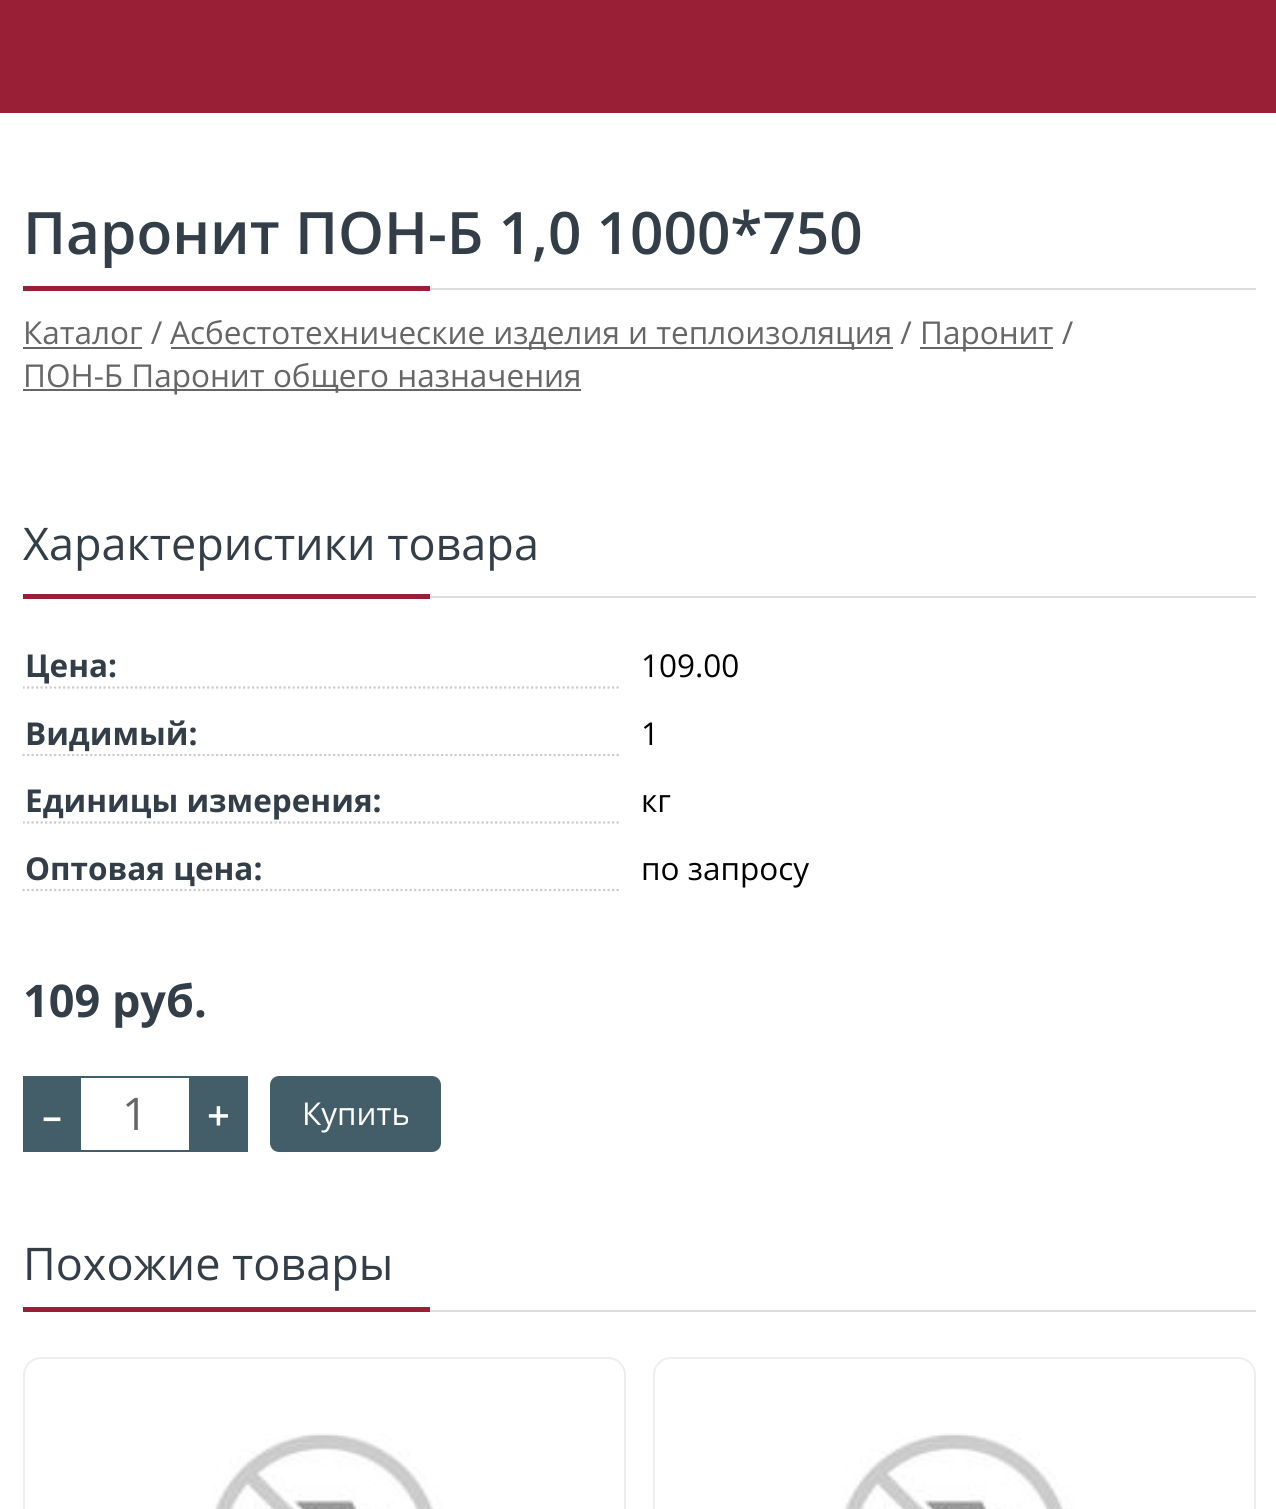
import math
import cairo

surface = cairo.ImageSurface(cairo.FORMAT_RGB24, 1276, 1509)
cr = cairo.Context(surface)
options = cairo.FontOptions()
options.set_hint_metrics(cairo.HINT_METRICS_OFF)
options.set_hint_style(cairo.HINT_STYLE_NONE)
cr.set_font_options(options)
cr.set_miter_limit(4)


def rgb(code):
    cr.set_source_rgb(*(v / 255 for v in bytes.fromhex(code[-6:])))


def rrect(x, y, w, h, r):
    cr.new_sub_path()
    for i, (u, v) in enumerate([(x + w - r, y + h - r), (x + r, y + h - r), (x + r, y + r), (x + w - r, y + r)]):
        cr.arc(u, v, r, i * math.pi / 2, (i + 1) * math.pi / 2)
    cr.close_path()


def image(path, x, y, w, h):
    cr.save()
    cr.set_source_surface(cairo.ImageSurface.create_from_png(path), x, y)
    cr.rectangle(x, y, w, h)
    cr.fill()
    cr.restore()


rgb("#ffffff")
cr.paint()
for x, y, w, h, color in [
    (0, 0, 1276, 113, "#991f36"),
    (430, 288, 826, 2, "#dddddd"),
    (23, 286, 407, 5, "#991f36"),
    (23, 347, 119, 2, "#666666"),
    (171, 347, 722, 2, "#666666"),
    (920, 347, 133, 2, "#666666"),
    (23, 389, 558, 2, "#666666"),
    (430, 596, 826, 2, "#dddddd"),
    (23, 594, 407, 5, "#991f36"),
]:
    rgb(color)
    cr.rectangle(x, y, w, h)
    cr.fill()
cr.save()
cr.rectangle(23, 644, 1233, 56)
cr.clip()
cr.new_path()
cr.move_to(22.5, 687.5)
cr.line_to(621, 687.5)
rgb("#cccccc")
cr.set_line_width(2.2)
cr.set_dash([2.25, 2.25])
cr.stroke()
cr.restore()
cr.new_path()
cr.move_to(22.5, 755)
cr.line_to(621, 755)
rgb("#cccccc")
cr.set_line_width(2.2)
cr.set_dash([2.25, 2.25])
cr.stroke()
cr.save()
cr.rectangle(23, 779, 1233, 56)
cr.clip()
cr.new_path()
cr.move_to(22.5, 822.5)
cr.line_to(621, 822.5)
cr.stroke()
cr.restore()
cr.new_path()
cr.move_to(22.5, 890)
cr.line_to(621, 890)
cr.stroke()
for x, y, w, h, color in [
    (23, 1076, 58, 76, "#435e69"),
    (81, 1076, 108, 2, "#435e69"),
    (81, 1150, 108, 2, "#435e69"),
    (189, 1076, 59, 76, "#435e69"),
]:
    rgb(color)
    cr.rectangle(x, y, w, h)
    cr.fill()
rrect(270, 1076, 171, 76, 9)
cr.fill()
rgb("#dddddd")
cr.rectangle(430, 1310, 826, 2)
cr.fill()
rgb("#991f36")
cr.rectangle(23, 1307, 407, 5)
cr.fill()
rrect(24, 1358, 601, 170, 17)
rgb("#eeeeee")
cr.set_line_width(2)
cr.set_dash([])
cr.stroke()
image("img/1.png", 214, 1433, 229, 76)
rrect(654, 1358, 601, 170, 17)
cr.stroke()
image("img/2.png", 844, 1433, 229, 76)
cr.select_font_face("Open Sans SemiBold")
cr.set_font_size(58.5)
rgb("#333e48")
cr.move_to(23, 254)
cr.show_text("Паронит ПОН-Б 1,0 1000*750")
cr.select_font_face("Open Sans")
cr.set_font_size(31.5)
rgb("#666666")
for x, y, s in [
    (23, 344, "Каталог /"),
    (170, 344, "Асбестотехнические изделия и теплоизоляция /"),
    (920, 344, "Паронит /"),
    (23, 387, "ПОН-Б Паронит общего назначения"),
]:
    cr.move_to(x, y)
    cr.show_text(s)
cr.set_font_size(45)
rgb("#333e48")
cr.move_to(23, 560)
cr.show_text("Характеристики товара")
cr.select_font_face("Open Sans", cairo.FONT_SLANT_NORMAL, cairo.FONT_WEIGHT_BOLD)
cr.set_font_size(31.5)
cr.move_to(25, 677)
cr.show_text("Цена:")
cr.select_font_face("Open Sans")
rgb("#000000")
cr.move_to(641, 677)
cr.show_text("109.00")
cr.select_font_face("Open Sans", cairo.FONT_SLANT_NORMAL, cairo.FONT_WEIGHT_BOLD)
rgb("#333e48")
cr.move_to(25, 745)
cr.show_text("Видимый:")
cr.select_font_face("Open Sans")
rgb("#000000")
cr.move_to(641, 745)
cr.show_text("1")
cr.select_font_face("Open Sans", cairo.FONT_SLANT_NORMAL, cairo.FONT_WEIGHT_BOLD)
rgb("#333e48")
cr.move_to(25, 812)
cr.show_text("Единицы измерения:")
cr.select_font_face("Open Sans")
rgb("#000000")
cr.move_to(641, 812)
cr.show_text("кг")
cr.select_font_face("Open Sans", cairo.FONT_SLANT_NORMAL, cairo.FONT_WEIGHT_BOLD)
rgb("#333e48")
cr.move_to(25, 880)
cr.show_text("Оптовая цена:")
cr.select_font_face("Open Sans")
rgb("#000000")
cr.move_to(641, 880)
cr.show_text("по запросу")
cr.select_font_face("Open Sans", cairo.FONT_SLANT_NORMAL, cairo.FONT_WEIGHT_BOLD)
cr.set_font_size(45)
rgb("#333e48")
cr.move_to(23, 1017)
cr.show_text("109 руб.")
cr.select_font_face("Open Sans SemiBold")
cr.set_font_size(40)
rgb("#ffffff")
cr.move_to(42, 1130)
cr.show_text("–")
cr.select_font_face("Open Sans")
cr.set_font_size(45)
rgb("#666666")
cr.move_to(122, 1130)
cr.show_text("1")
cr.select_font_face("Open Sans SemiBold")
cr.set_font_size(40)
rgb("#ffffff")
cr.move_to(207, 1130)
cr.show_text("+")
cr.select_font_face("Open Sans")
cr.set_font_size(31.5)
cr.move_to(302, 1125)
cr.show_text("Купить")
cr.set_font_size(45)
rgb("#333e48")
cr.move_to(23, 1280)
cr.show_text("Похожие товары")
surface.write_to_png("page.png")
